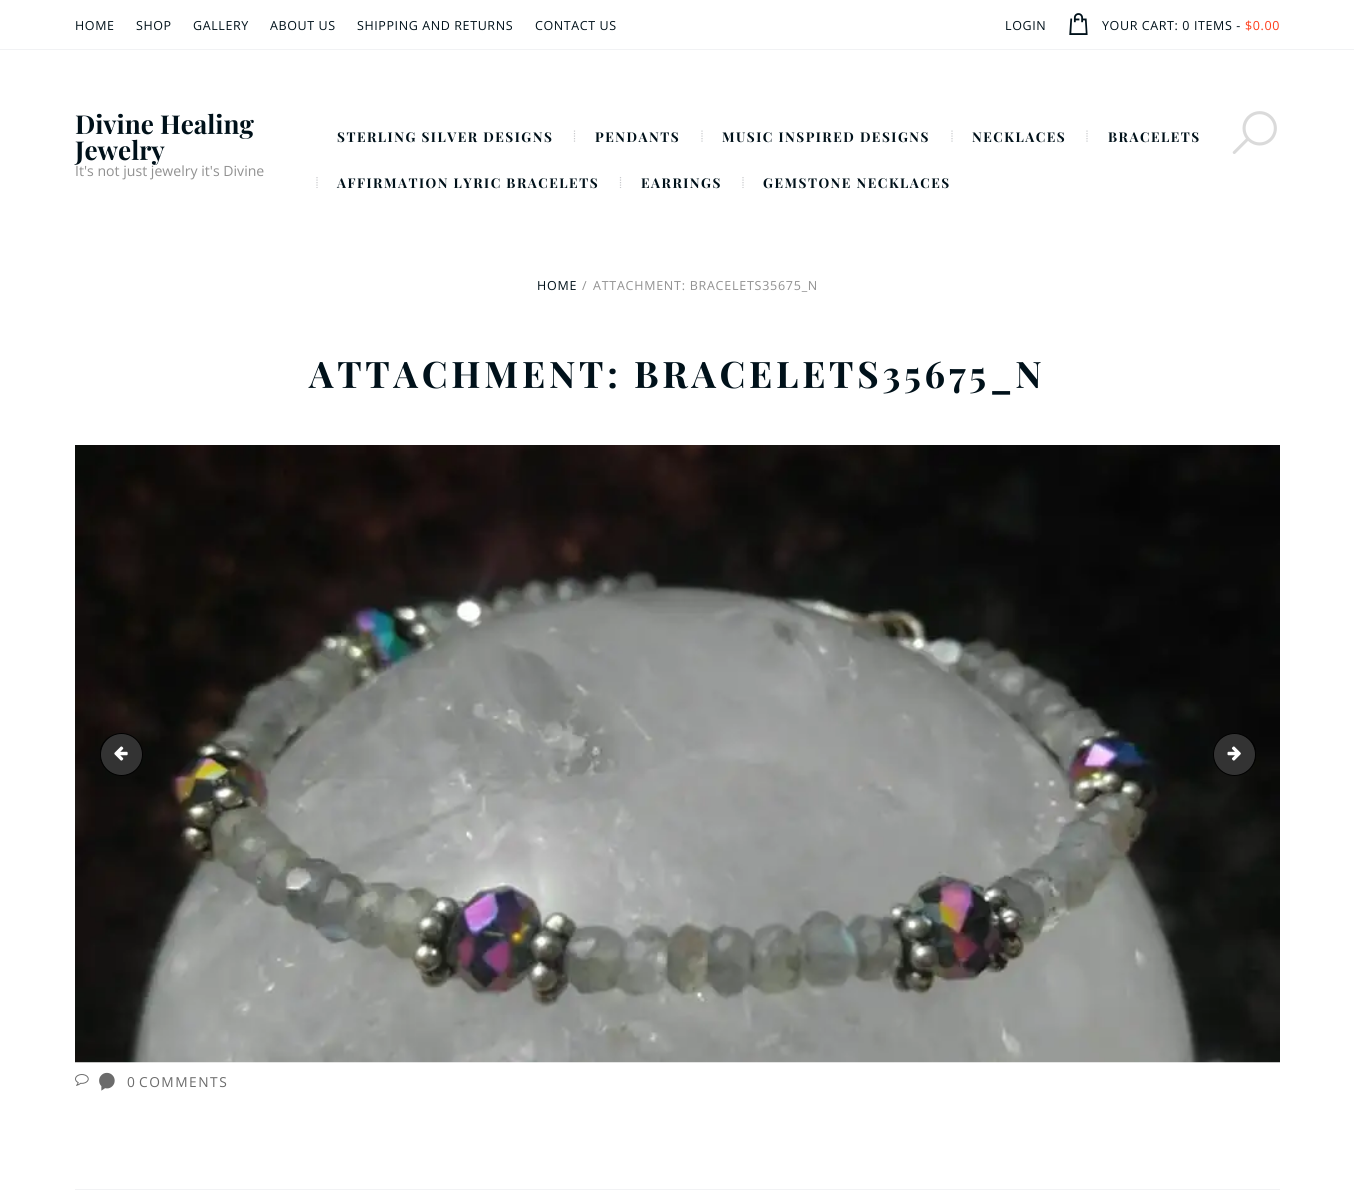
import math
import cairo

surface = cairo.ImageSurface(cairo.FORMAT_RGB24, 1354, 1194)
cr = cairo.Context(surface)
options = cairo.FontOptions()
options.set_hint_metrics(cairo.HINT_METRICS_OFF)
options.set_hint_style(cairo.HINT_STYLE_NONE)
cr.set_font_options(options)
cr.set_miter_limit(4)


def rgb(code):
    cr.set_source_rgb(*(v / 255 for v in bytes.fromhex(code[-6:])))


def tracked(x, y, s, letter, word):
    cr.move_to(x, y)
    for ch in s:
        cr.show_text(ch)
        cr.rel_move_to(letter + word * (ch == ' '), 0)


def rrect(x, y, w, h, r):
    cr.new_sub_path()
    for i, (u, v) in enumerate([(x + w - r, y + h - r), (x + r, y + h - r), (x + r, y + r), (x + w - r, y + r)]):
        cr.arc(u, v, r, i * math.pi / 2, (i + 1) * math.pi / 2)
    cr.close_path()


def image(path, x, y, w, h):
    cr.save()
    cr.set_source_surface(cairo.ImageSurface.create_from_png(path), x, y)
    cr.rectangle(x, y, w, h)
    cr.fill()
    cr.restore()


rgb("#ffffff")
cr.paint()
rgb("#f1f2f4")
cr.rectangle(0, 49, 1354, 1)
cr.fill()
image("img/1.png", 1069, 13, 19, 22)
cr.new_path()
cr.move_to(574.5, 130.5)
cr.line_to(574.5, 142)
rgb("#c8c9cc")
cr.set_line_width(1.2)
cr.set_dash([1.25, 1.25])
cr.stroke()
cr.new_path()
cr.move_to(702, 130.5)
cr.line_to(702, 142)
cr.stroke()
cr.new_path()
cr.move_to(952, 130.5)
cr.line_to(952, 142)
cr.stroke()
cr.new_path()
cr.move_to(1087, 130.5)
cr.line_to(1087, 142)
cr.stroke()
cr.new_path()
cr.move_to(317, 177)
cr.line_to(317, 188)
cr.stroke()
cr.new_path()
cr.move_to(620.5, 177)
cr.line_to(620.5, 188)
cr.stroke()
cr.new_path()
cr.move_to(743, 177)
cr.line_to(743, 188)
cr.stroke()
image("img/2.png", 1232, 111, 45, 43)
image("img/3.png", 75, 445, 1205, 618)
rrect(100.5, 735.5, 34, 37, 17)
rgb("#000000")
cr.set_line_width(1)
cr.set_dash([])
cr.stroke()
rgb("#333333")
cr.arc(121.5, 754.5, 21, 0, 2 * math.pi)
cr.fill_preserve()
rgb("#000000")
cr.stroke()
image("img/4.png", 114, 746, 14, 15)
rrect(1221.5, 735.5, 34, 37, 17)
cr.stroke()
rgb("#333333")
cr.arc(1234.5, 754.5, 21, 0, 2 * math.pi)
cr.fill_preserve()
rgb("#000000")
cr.stroke()
image("img/5.png", 1227, 746, 14, 15)
image("img/6.png", 75, 1074, 14, 12)
image("img/7.png", 99, 1072, 16, 19)
rgb("#f1f2f4")
cr.rectangle(75, 1189, 1205, 1)
cr.fill()
cr.select_font_face("Open Sans")
cr.set_font_size(12.5)
rgb("#00111a")
for x, y, s in [
    (75, 30, "HOME"),
    (136, 30, "SHOP"),
    (193, 30, "GALLERY"),
    (270, 30, "ABOUT US"),
    (357, 30, "SHIPPING AND RETURNS"),
    (535, 30, "CONTACT US"),
    (1005, 30, "LOGIN"),
    (1102, 30, "YOUR CART: 0 ITEMS -"),
]:
    tracked(x, y, s, 0.6, 0)
rgb("#ff3b18")
tracked(1245, 30, "$0.00", 0.6, 0)
cr.select_font_face("Playfair Display", cairo.FONT_SLANT_NORMAL, cairo.FONT_WEIGHT_BOLD)
cr.set_font_size(26)
rgb("#00111a")
cr.move_to(75, 134)
cr.show_text("Divine Healing")
cr.move_to(75, 160)
cr.show_text("Jewelry")
cr.select_font_face("Open Sans")
cr.set_font_size(14.1)
rgb("#919191")
cr.move_to(75, 176)
cr.show_text("It's not just jewelry it's Divine")
cr.select_font_face("Playfair Display", cairo.FONT_SLANT_NORMAL, cairo.FONT_WEIGHT_BOLD)
cr.set_font_size(13.5)
rgb("#00111a")
for x, y, s in [
    (337, 142, "STERLING SILVER DESIGNS"),
    (595, 142, "PENDANTS"),
    (722, 142, "MUSIC INSPIRED DESIGNS"),
    (972, 142, "NECKLACES"),
    (1108, 142, "BRACELETS"),
    (337, 188, "AFFIRMATION LYRIC BRACELETS"),
    (641, 188, "EARRINGS"),
    (763, 188, "GEMSTONE NECKLACES"),
]:
    tracked(x, y, s, 1.5, 0)
cr.select_font_face("Open Sans")
cr.set_font_size(12.5)
tracked(537, 290, "HOME", 0.75, 0)
rgb("#919191")
tracked(582, 290, "/", 0.75, 0)
tracked(593, 290, "ATTACHMENT: BRACELETS35675_N", 0.75, 0)
cr.select_font_face("Playfair Display", cairo.FONT_SLANT_NORMAL, cairo.FONT_WEIGHT_BOLD)
cr.set_font_size(36.6)
rgb("#00111a")
tracked(309, 388, "ATTACHMENT: BRACELETS35675_N", 3.75, 0)
cr.select_font_face("Open Sans")
cr.set_font_size(13.75)
rgb("#6b6b6b")
tracked(127, 1087, "0", 1.5, 0)
tracked(139, 1087, "COMMENTS", 1.5, 0)
surface.write_to_png("page.png")
